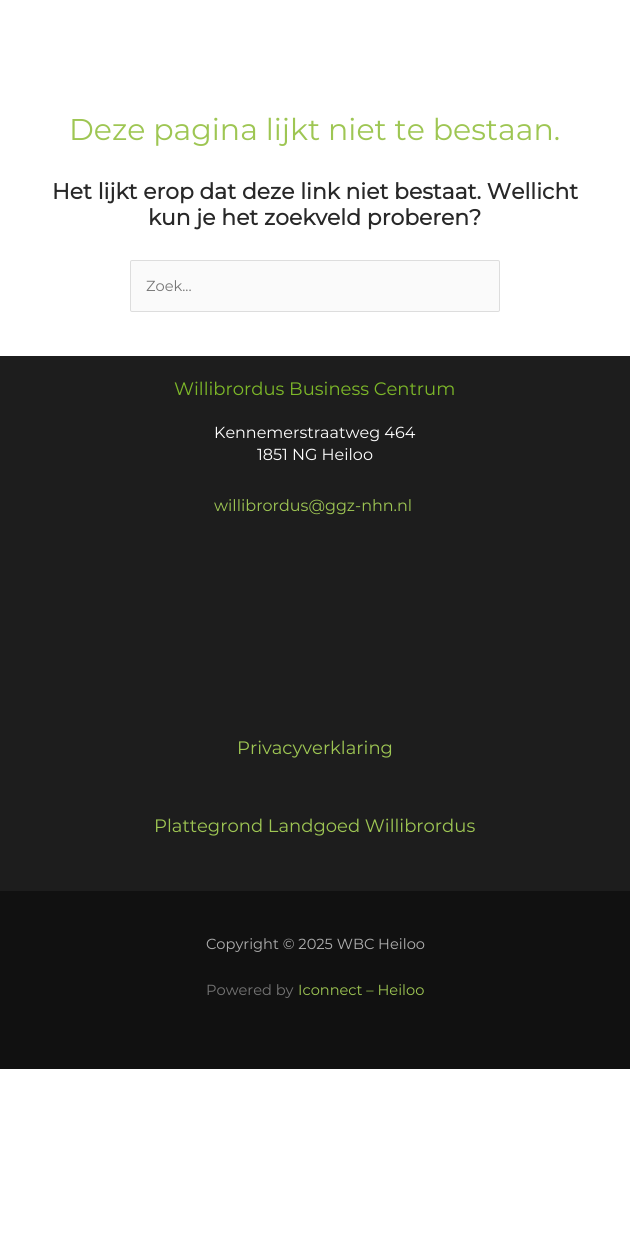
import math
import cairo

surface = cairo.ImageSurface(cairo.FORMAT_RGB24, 630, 1253)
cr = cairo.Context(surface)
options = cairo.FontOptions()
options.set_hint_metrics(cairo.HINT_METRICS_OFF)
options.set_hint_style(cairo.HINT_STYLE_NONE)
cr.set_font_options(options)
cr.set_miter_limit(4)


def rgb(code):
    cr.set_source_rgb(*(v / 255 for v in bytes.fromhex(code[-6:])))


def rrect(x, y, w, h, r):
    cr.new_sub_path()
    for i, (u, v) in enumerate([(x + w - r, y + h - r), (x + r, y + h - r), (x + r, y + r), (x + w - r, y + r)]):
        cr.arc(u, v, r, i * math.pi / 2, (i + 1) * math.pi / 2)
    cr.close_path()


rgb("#ffffff")
cr.paint()
rgb("#fafafa")
rrect(130.5, 260.5, 369, 51, 1.5)
cr.fill_preserve()
rgb("#dddddd")
cr.set_line_width(1)
cr.stroke()
rgb("#1d1d1d")
cr.rectangle(0, 356, 630, 535)
cr.fill()
rgb("#111111")
cr.rectangle(0, 891, 630, 178)
cr.fill()
cr.select_font_face("Montserrat Thin")
cr.set_font_size(30)
rgb("#9ec653")
cr.move_to(69, 140)
cr.show_text("Deze pagina lijkt niet te bestaan.")
cr.select_font_face("Montserrat", cairo.FONT_SLANT_NORMAL, cairo.FONT_WEIGHT_BOLD)
cr.set_font_size(21.9)
rgb("#282828")
cr.move_to(52, 199)
cr.show_text("Het lijkt erop dat deze link niet bestaat. Wellicht")
cr.move_to(148, 225)
cr.show_text("kun je het zoekveld proberen?")
cr.select_font_face("Montserrat Thin")
cr.set_font_size(14.6)
rgb("#757575")
cr.move_to(146, 291)
cr.show_text("Zoek...")
cr.set_font_size(18)
rgb("#7db828")
cr.move_to(174, 395)
cr.show_text("Willibrordus Business Centrum")
cr.set_font_size(16)
rgb("#ffffff")
cr.move_to(214, 438)
cr.show_text("Kennemerstraatweg 464")
cr.move_to(257, 460)
cr.show_text("1851 NG Heiloo")
rgb("#9ec653")
cr.move_to(214, 511)
cr.show_text("willibrordus@ggz-nhn.nl")
cr.set_font_size(18)
cr.move_to(237, 754)
cr.show_text("Privacyverklaring")
cr.move_to(154, 832)
cr.show_text("Plattegrond Landgoed Willibrordus")
cr.set_font_size(14.6)
rgb("#afafaf")
cr.move_to(206, 949)
cr.show_text("Copyright © 2025 WBC Heiloo")
rgb("#757575")
cr.move_to(206, 995)
cr.show_text("Powered by")
rgb("#9ec653")
cr.move_to(298, 995)
cr.show_text("Iconnect – Heiloo")
surface.write_to_png("page.png")
